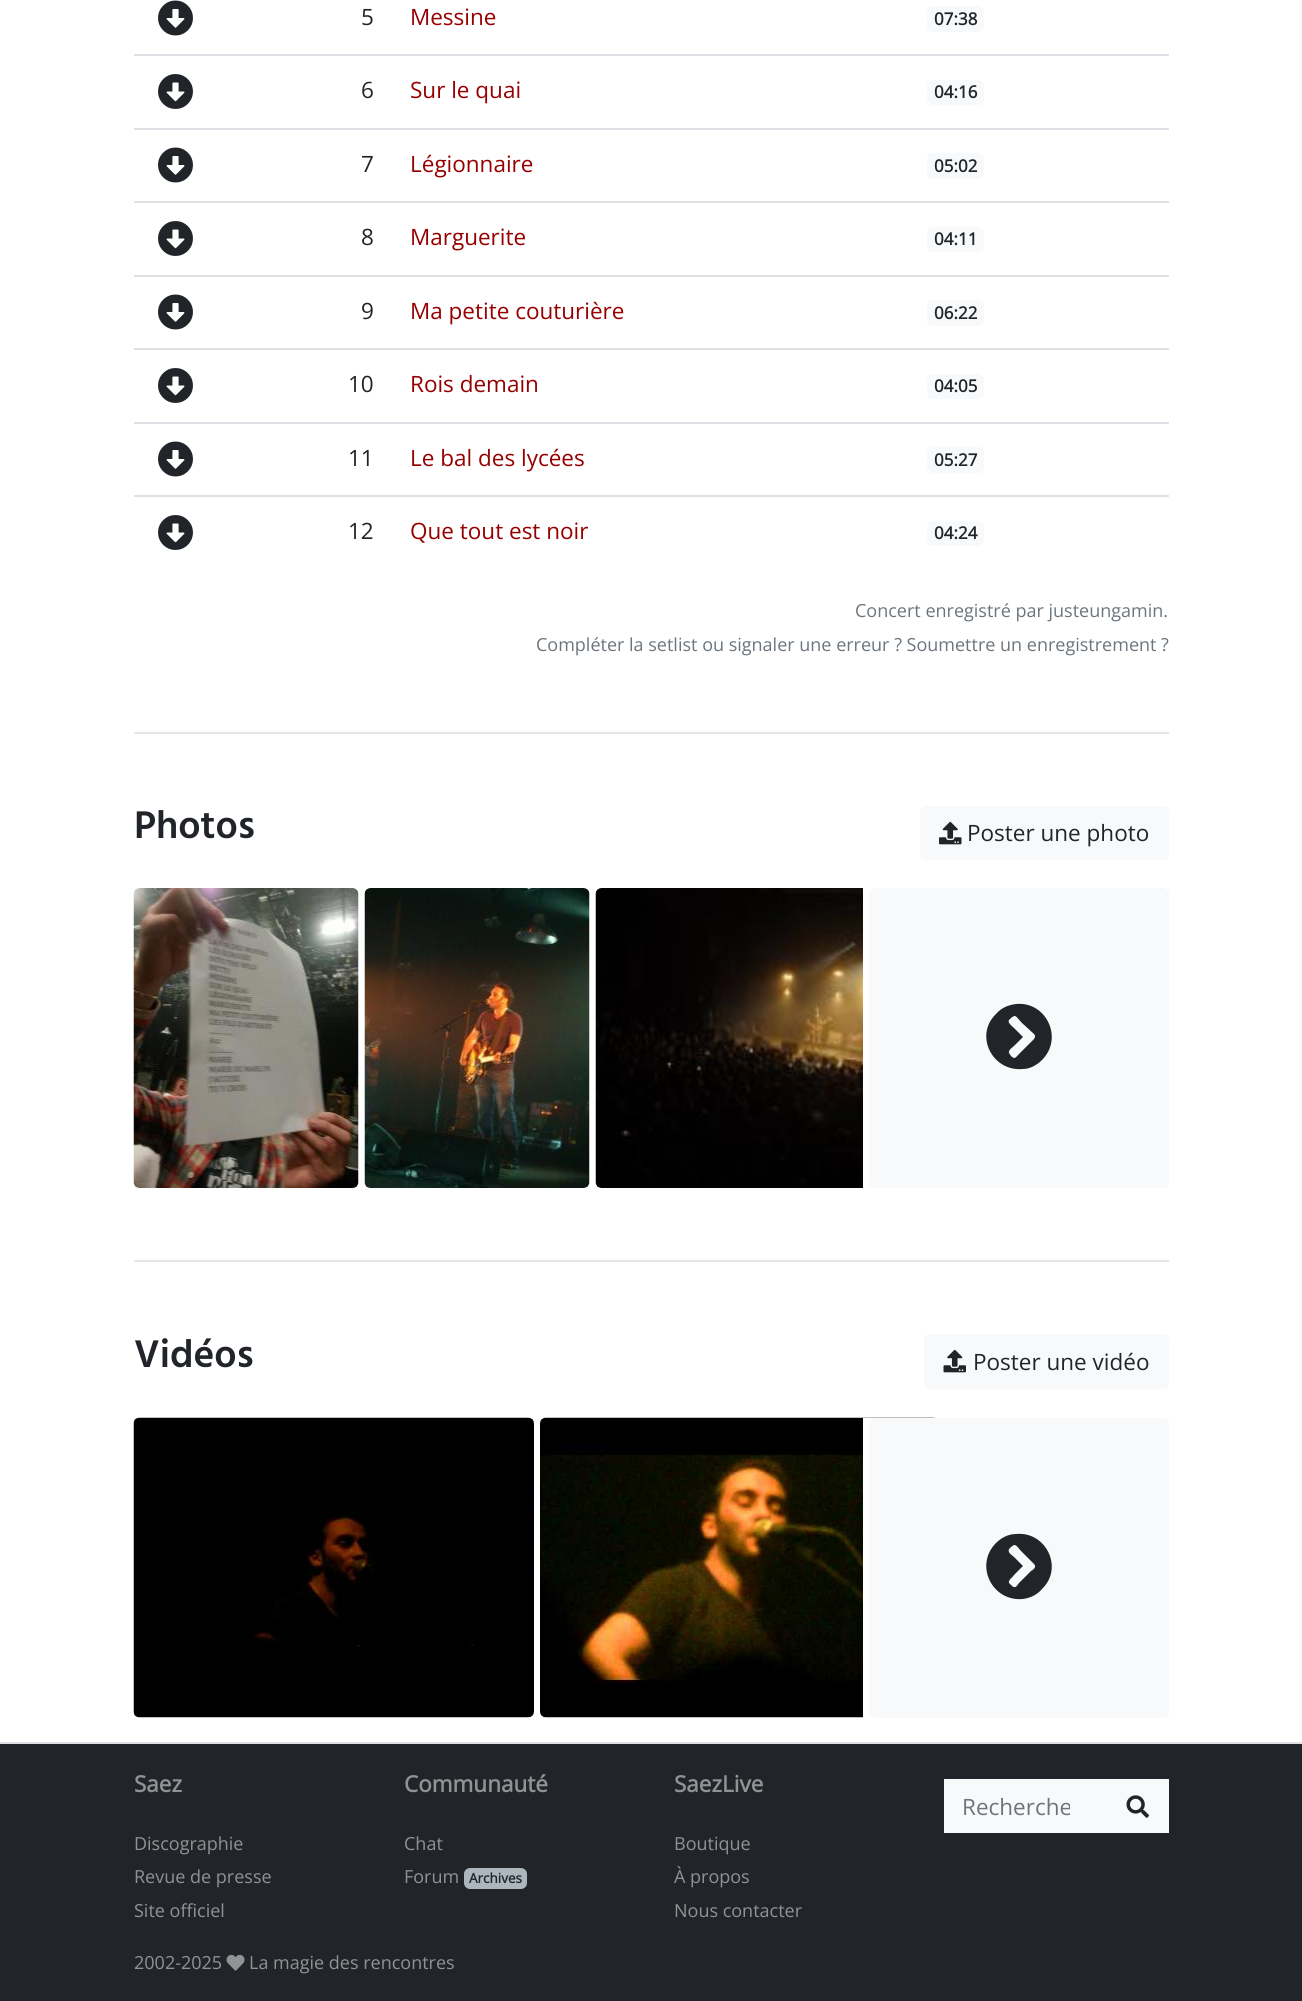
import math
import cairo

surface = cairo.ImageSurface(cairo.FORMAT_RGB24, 1302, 2001)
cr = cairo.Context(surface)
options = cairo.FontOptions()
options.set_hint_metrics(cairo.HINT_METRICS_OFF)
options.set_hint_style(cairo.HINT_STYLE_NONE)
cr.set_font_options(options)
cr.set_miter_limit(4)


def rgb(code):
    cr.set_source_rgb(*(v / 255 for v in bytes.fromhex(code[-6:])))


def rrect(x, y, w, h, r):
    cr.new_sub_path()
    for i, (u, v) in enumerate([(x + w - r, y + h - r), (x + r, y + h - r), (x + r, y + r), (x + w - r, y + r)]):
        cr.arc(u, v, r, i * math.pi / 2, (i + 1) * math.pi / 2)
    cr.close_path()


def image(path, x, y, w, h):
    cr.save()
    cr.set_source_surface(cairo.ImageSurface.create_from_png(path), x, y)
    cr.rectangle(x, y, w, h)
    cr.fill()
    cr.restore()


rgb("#212529")
cr.paint()
rgb("#ffffff")
cr.rectangle(0, 0, 1302, 1742)
cr.fill()
image("img/1.png", 158, 0, 35, 36)
rgb("#f8f9fa")
rrect(927, 6, 57, 26, 6)
cr.fill()
rgb("#dee2e6")
cr.rectangle(134, 54, 1035, 2)
cr.fill()
image("img/2.png", 158, 74, 35, 35)
rgb("#f8f9fa")
rrect(927, 80, 57, 25, 6)
cr.fill()
rgb("#dee2e6")
cr.rectangle(134, 128, 1035, 2)
cr.fill()
image("img/1.png", 158, 147, 35, 36)
rgb("#f8f9fa")
rrect(927, 153, 57, 26, 6)
cr.fill()
rgb("#dee2e6")
cr.rectangle(134, 201, 1035, 2)
cr.fill()
image("img/2.png", 158, 221, 35, 35)
rgb("#f8f9fa")
rrect(927, 227, 57, 25, 6)
cr.fill()
rgb("#dee2e6")
cr.rectangle(134, 275, 1035, 2)
cr.fill()
image("img/1.png", 158, 294, 35, 36)
rgb("#f8f9fa")
rrect(927, 300, 57, 26, 6)
cr.fill()
rgb("#dee2e6")
cr.rectangle(134, 348, 1035, 2)
cr.fill()
image("img/2.png", 158, 368, 35, 35)
rgb("#f8f9fa")
rrect(927, 374, 57, 25, 6)
cr.fill()
rgb("#dee2e6")
cr.rectangle(134, 422, 1035, 2)
cr.fill()
image("img/1.png", 158, 441, 35, 36)
rgb("#f8f9fa")
rrect(927, 447, 57, 26, 6)
cr.fill()
rgb("#dee2e6")
cr.rectangle(134, 495, 1035, 2)
cr.fill()
image("img/2.png", 158, 515, 35, 35)
rgb("#f8f9fa")
rrect(927, 521, 57, 25, 6)
cr.fill()
rgb("#e6e6e6")
cr.rectangle(134, 732, 1035, 2)
cr.fill()
rgb("#f8f9fa")
rrect(920, 806, 249, 54, 6)
cr.fill()
image("img/3.png", 939, 821, 23, 24)
image("img/4.png", 133, 888, 226, 300)
image("img/5.png", 364, 888, 226, 300)
image("img/6.png", 595, 888, 268, 300)
rrect(869, 888, 300, 300, 6)
cr.fill()
rgb("#212529")
cr.new_path()
cr.move_to(996, 1014)
cr.curve_to(1001, 1008, 1008, 1005, 1016, 1004)
cr.curve_to(1046, 1001, 1064, 1038, 1042, 1060)
cr.curve_to(1037, 1065, 1030, 1069, 1023, 1069)
cr.curve_to(992, 1072, 974, 1035, 996, 1014)
cr.close_path()
cr.move_to(1034, 1034)
cr.line_to(1022, 1023)
cr.curve_to(1016, 1017, 1016, 1013, 1010, 1019)
cr.curve_to(1006, 1022, 1012, 1026, 1014, 1028)
cr.line_to(1023, 1037)
cr.line_to(1014, 1046)
cr.curve_to(1013, 1047, 1008, 1050, 1009, 1053)
cr.line_to(1011, 1056)
cr.curve_to(1015, 1060, 1016, 1057, 1019, 1054)
cr.line_to(1031, 1042)
cr.curve_to(1033, 1040, 1037, 1037, 1034, 1034)
cr.close_path()
cr.fill()
rgb("#e6e6e6")
cr.rectangle(134, 1260, 1035, 2)
cr.fill()
rgb("#f8f9fa")
rrect(924, 1334, 245, 55, 6)
cr.fill()
image("img/7.png", 943, 1349, 23, 24)
image("img/8.png", 133, 1417, 401, 301)
image("img/9.png", 540, 1417, 395, 301)
rgb("#ffffff")
cr.rectangle(863, 1418, 72, 300)
cr.fill()
rgb("#f8f9fa")
rrect(869, 1418, 300, 300, 6)
cr.fill()
rgb("#212529")
cr.new_path()
cr.move_to(996, 1543)
cr.curve_to(1001, 1538, 1008, 1534, 1016, 1534)
cr.curve_to(1046, 1531, 1064, 1568, 1042, 1589)
cr.curve_to(1037, 1595, 1030, 1598, 1023, 1599)
cr.curve_to(992, 1602, 974, 1565, 996, 1543)
cr.close_path()
cr.move_to(1034, 1564)
cr.line_to(1022, 1552)
cr.curve_to(1016, 1546, 1016, 1542, 1010, 1548)
cr.curve_to(1006, 1552, 1012, 1555, 1014, 1557)
cr.line_to(1023, 1566)
cr.line_to(1014, 1575)
cr.curve_to(1013, 1577, 1008, 1580, 1009, 1583)
cr.line_to(1011, 1585)
cr.curve_to(1015, 1589, 1016, 1587, 1019, 1583)
cr.line_to(1031, 1571)
cr.curve_to(1033, 1570, 1037, 1567, 1034, 1564)
cr.close_path()
cr.fill()
rgb("#dee2e6")
cr.rectangle(0, 1742, 1302, 2)
cr.fill()
rgb("#adb5bd")
rrect(464, 1868, 63, 21, 6)
cr.fill()
rgb("#f8f9fa")
cr.rectangle(944, 1779, 225, 54)
cr.fill()
image("img/10.png", 1126, 1795, 23, 23)
image("img/11.png", 226, 1954, 19, 17)
cr.select_font_face("Open Sans")
cr.set_font_size(22.5)
rgb("#212529")
cr.move_to(361, 25)
cr.show_text("5")
rgb("#970000")
cr.move_to(410, 25)
cr.show_text("Messine")
cr.select_font_face("Open Sans", cairo.FONT_SLANT_NORMAL, cairo.FONT_WEIGHT_BOLD)
cr.set_font_size(17)
rgb("#212529")
cr.move_to(934, 25)
cr.show_text("07:38")
cr.select_font_face("Open Sans")
cr.set_font_size(22.5)
cr.move_to(361, 98)
cr.show_text("6")
rgb("#970000")
cr.move_to(410, 98)
cr.show_text("Sur le quai")
cr.select_font_face("Open Sans", cairo.FONT_SLANT_NORMAL, cairo.FONT_WEIGHT_BOLD)
cr.set_font_size(17)
rgb("#212529")
cr.move_to(934, 98)
cr.show_text("04:16")
cr.select_font_face("Open Sans")
cr.set_font_size(22.5)
cr.move_to(361, 172)
cr.show_text("7")
rgb("#970000")
cr.move_to(410, 172)
cr.show_text("Légionnaire")
cr.select_font_face("Open Sans", cairo.FONT_SLANT_NORMAL, cairo.FONT_WEIGHT_BOLD)
cr.set_font_size(17)
rgb("#212529")
cr.move_to(934, 172)
cr.show_text("05:02")
cr.select_font_face("Open Sans")
cr.set_font_size(22.5)
cr.move_to(361, 245)
cr.show_text("8")
rgb("#970000")
cr.move_to(410, 245)
cr.show_text("Marguerite")
cr.select_font_face("Open Sans", cairo.FONT_SLANT_NORMAL, cairo.FONT_WEIGHT_BOLD)
cr.set_font_size(17)
rgb("#212529")
cr.move_to(934, 245)
cr.show_text("04:11")
cr.select_font_face("Open Sans")
cr.set_font_size(22.5)
cr.move_to(361, 319)
cr.show_text("9")
rgb("#970000")
cr.move_to(410, 319)
cr.show_text("Ma petite couturière")
cr.select_font_face("Open Sans", cairo.FONT_SLANT_NORMAL, cairo.FONT_WEIGHT_BOLD)
cr.set_font_size(17)
rgb("#212529")
cr.move_to(934, 319)
cr.show_text("06:22")
cr.select_font_face("Open Sans")
cr.set_font_size(22.5)
cr.move_to(348, 392)
cr.show_text("10")
rgb("#970000")
cr.move_to(410, 392)
cr.show_text("Rois demain")
cr.select_font_face("Open Sans", cairo.FONT_SLANT_NORMAL, cairo.FONT_WEIGHT_BOLD)
cr.set_font_size(17)
rgb("#212529")
cr.move_to(934, 392)
cr.show_text("04:05")
cr.select_font_face("Open Sans")
cr.set_font_size(22.5)
cr.move_to(348, 466)
cr.show_text("11")
rgb("#970000")
cr.move_to(410, 466)
cr.show_text("Le bal des lycées")
cr.select_font_face("Open Sans", cairo.FONT_SLANT_NORMAL, cairo.FONT_WEIGHT_BOLD)
cr.set_font_size(17)
rgb("#212529")
cr.move_to(934, 466)
cr.show_text("05:27")
cr.select_font_face("Open Sans")
cr.set_font_size(22.5)
cr.move_to(348, 539)
cr.show_text("12")
rgb("#970000")
cr.move_to(410, 539)
cr.show_text("Que tout est noir")
cr.select_font_face("Open Sans", cairo.FONT_SLANT_NORMAL, cairo.FONT_WEIGHT_BOLD)
cr.set_font_size(17)
rgb("#212529")
cr.move_to(934, 539)
cr.show_text("04:24")
cr.select_font_face("Open Sans")
cr.set_font_size(18)
rgb("#6c757d")
cr.move_to(855, 617)
cr.show_text("Concert enregistré par justeungamin.")
cr.move_to(536, 651)
cr.show_text("Compléter la setlist ou signaler une erreur ? Soumettre un enregistrement ?")
cr.select_font_face("Hind SemiBold")
cr.set_font_size(39.5)
rgb("#212529")
cr.move_to(134, 838)
cr.show_text("Photos")
cr.select_font_face("Open Sans")
cr.set_font_size(22.5)
cr.move_to(967, 841)
cr.show_text("Poster une photo")
cr.select_font_face("Hind SemiBold")
cr.set_font_size(39.5)
cr.move_to(134, 1367)
cr.show_text("Vidéos")
cr.select_font_face("Open Sans")
cr.set_font_size(22.5)
cr.move_to(973, 1370)
cr.show_text("Poster une vidéo")
cr.select_font_face("Open Sans", cairo.FONT_SLANT_NORMAL, cairo.FONT_WEIGHT_BOLD)
rgb("#909294")
cr.move_to(134, 1792)
cr.show_text("Saez")
cr.select_font_face("Open Sans")
cr.set_font_size(18)
for x, y, s in [
    (134, 1850, "Discographie"),
    (134, 1883, "Revue de presse"),
    (134, 1917, "Site officiel"),
]:
    cr.move_to(x, y)
    cr.show_text(s)
cr.select_font_face("Open Sans", cairo.FONT_SLANT_NORMAL, cairo.FONT_WEIGHT_BOLD)
cr.set_font_size(22.5)
cr.move_to(404, 1792)
cr.show_text("Communauté")
cr.select_font_face("Open Sans")
cr.set_font_size(18)
cr.move_to(404, 1850)
cr.show_text("Chat")
cr.move_to(404, 1883)
cr.show_text("Forum")
cr.select_font_face("Open Sans", cairo.FONT_SLANT_NORMAL, cairo.FONT_WEIGHT_BOLD)
cr.set_font_size(13.5)
rgb("#212529")
cr.move_to(469, 1883)
cr.show_text("Archives")
cr.set_font_size(22.5)
rgb("#909294")
cr.move_to(674, 1792)
cr.show_text("SaezLive")
cr.select_font_face("Open Sans")
cr.set_font_size(18)
for x, y, s in [
    (674, 1850, "Boutique"),
    (674, 1883, "À propos"),
    (674, 1917, "Nous contacter"),
]:
    cr.move_to(x, y)
    cr.show_text(s)
cr.save()
cr.rectangle(962, 1791, 108, 30)
cr.clip()
cr.set_font_size(22.5)
rgb("#6c757d")
cr.move_to(962, 1815)
cr.show_text("Recherche")
cr.restore()
cr.move_to(134, 1969)
cr.show_text("2002-2025")
cr.move_to(249, 1969)
cr.show_text("La magie des rencontres")
surface.write_to_png("page.png")
